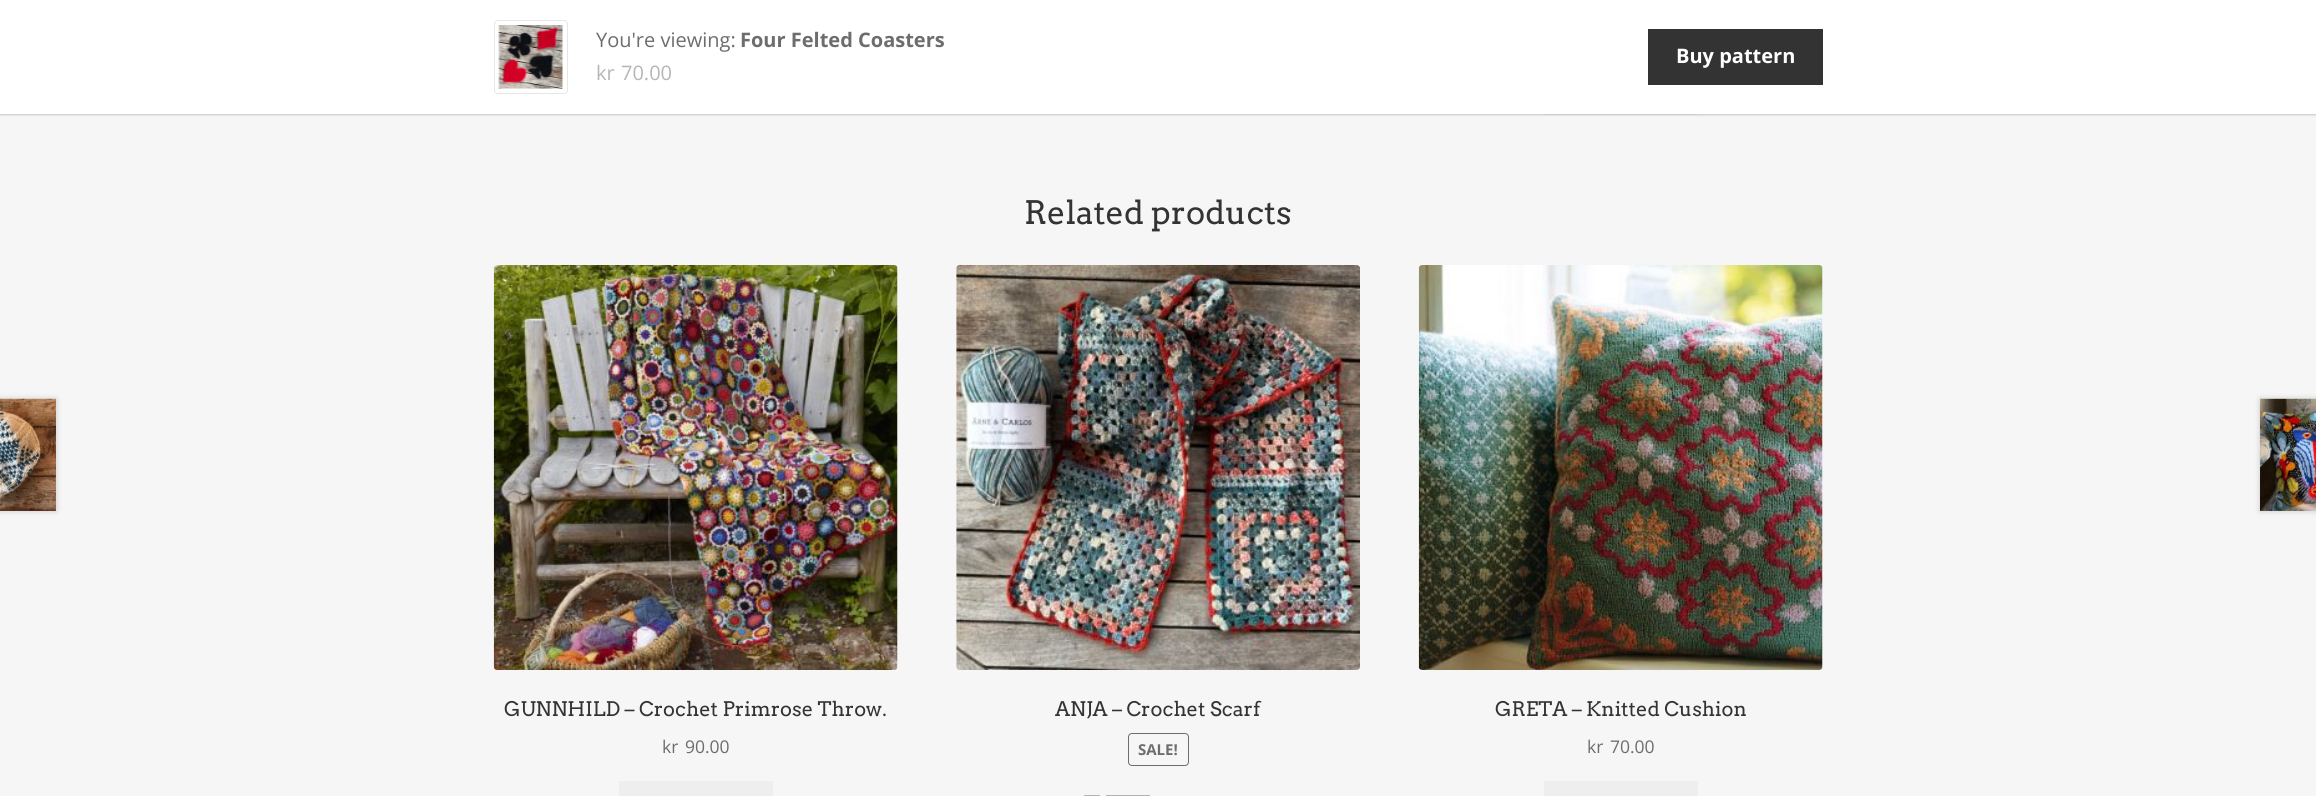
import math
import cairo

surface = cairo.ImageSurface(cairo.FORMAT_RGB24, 2316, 796)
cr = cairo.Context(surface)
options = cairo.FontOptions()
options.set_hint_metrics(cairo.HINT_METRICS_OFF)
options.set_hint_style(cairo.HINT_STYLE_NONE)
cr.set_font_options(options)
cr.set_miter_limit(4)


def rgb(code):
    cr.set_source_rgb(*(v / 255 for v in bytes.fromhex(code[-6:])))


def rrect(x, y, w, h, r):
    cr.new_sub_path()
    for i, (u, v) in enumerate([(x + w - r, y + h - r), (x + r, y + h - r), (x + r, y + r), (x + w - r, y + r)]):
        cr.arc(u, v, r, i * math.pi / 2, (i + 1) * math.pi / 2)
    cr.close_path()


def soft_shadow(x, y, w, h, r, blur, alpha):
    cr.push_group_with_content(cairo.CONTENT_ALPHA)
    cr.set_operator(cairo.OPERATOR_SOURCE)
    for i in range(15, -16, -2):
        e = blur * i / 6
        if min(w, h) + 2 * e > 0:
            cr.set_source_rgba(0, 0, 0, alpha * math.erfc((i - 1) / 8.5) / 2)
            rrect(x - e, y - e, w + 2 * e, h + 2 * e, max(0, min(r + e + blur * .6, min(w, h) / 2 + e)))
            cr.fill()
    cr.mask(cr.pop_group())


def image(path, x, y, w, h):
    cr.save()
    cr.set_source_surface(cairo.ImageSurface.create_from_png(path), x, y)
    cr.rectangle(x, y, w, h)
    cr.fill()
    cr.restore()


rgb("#f6f6f6")
cr.paint()
rgb("#eeeeee")
cr.rectangle(1544, 114, 154, 1)
cr.fill()
rgb("#000000")
soft_shadow(0, 1, 2316, 114, 0, 1, 0.2)
rgb("#ffffff")
cr.rectangle(0, 0, 2316, 114)
cr.fill()
rrect(494.5, 20.5, 73, 73, 3.5)
rgb("#e6e6e6")
cr.set_line_width(1)
cr.stroke()
image("img/1.png", 498, 25, 65, 64)
rgb("#333333")
cr.rectangle(1648, 29, 175, 56)
cr.fill()
image("img/2.png", 493, 265, 405, 405)
rgb("#eeeeee")
cr.rectangle(619, 781, 154, 15)
cr.fill()
image("img/3.png", 956, 265, 404, 405)
rrect(1128.5, 733.5, 60, 32, 3.5)
rgb("#6d6d6d")
cr.stroke()
rgb("#b2b2b2")
cr.rectangle(1084, 795, 16, 1)
cr.fill()
cr.rectangle(1106, 795, 44, 1)
cr.fill()
image("img/4.png", 1418, 265, 405, 405)
rgb("#eeeeee")
cr.rectangle(1544, 781, 154, 15)
cr.fill()
rgb("#000000")
soft_shadow(-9, 399, 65, 112, 0, 3, 0.2)
image("img/5.png", 0, 398, 56, 113)
soft_shadow(2260, 399, 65, 112, 0, 3, 0.2)
image("img/6.png", 2260, 398, 56, 113)
cr.select_font_face("Open Sans")
cr.set_font_size(20)
rgb("#6d6d6d")
cr.move_to(596, 47)
cr.show_text("You're viewing:")
cr.select_font_face("Open Sans", cairo.FONT_SLANT_NORMAL, cairo.FONT_WEIGHT_BOLD)
cr.move_to(740, 47)
cr.show_text("Four Felted Coasters")
cr.select_font_face("Open Sans")
rgb("#b6b6b6")
cr.move_to(596, 80)
cr.show_text("kr")
cr.move_to(621, 80)
cr.show_text("70.00")
cr.select_font_face("Open Sans", cairo.FONT_SLANT_NORMAL, cairo.FONT_WEIGHT_BOLD)
rgb("#ffffff")
cr.move_to(1676, 63)
cr.show_text("Buy pattern")
cr.select_font_face("Arvo")
cr.set_font_size(32.25)
rgb("#333333")
cr.move_to(1024, 224)
cr.show_text("Related products")
cr.set_font_size(20)
cr.move_to(504, 716)
cr.show_text("GUNNHILD – Crochet Primrose Throw.")
cr.select_font_face("Open Sans")
cr.set_font_size(17.5)
rgb("#6d6d6d")
cr.move_to(662, 753)
cr.show_text("kr")
cr.move_to(685, 753)
cr.show_text("90.00")
cr.select_font_face("Arvo")
cr.set_font_size(20)
rgb("#333333")
cr.move_to(1055, 716)
cr.show_text("ANJA – Crochet Scarf")
cr.select_font_face("Open Sans", cairo.FONT_SLANT_NORMAL, cairo.FONT_WEIGHT_BOLD)
cr.set_font_size(15)
rgb("#6d6d6d")
cr.move_to(1138, 755)
cr.show_text("SALE!")
cr.select_font_face("Arvo")
cr.set_font_size(20)
rgb("#333333")
cr.move_to(1495, 716)
cr.show_text("GRETA – Knitted Cushion")
cr.select_font_face("Open Sans")
cr.set_font_size(17.5)
rgb("#6d6d6d")
cr.move_to(1587, 753)
cr.show_text("kr")
cr.move_to(1610, 753)
cr.show_text("70.00")
surface.write_to_png("page.png")
